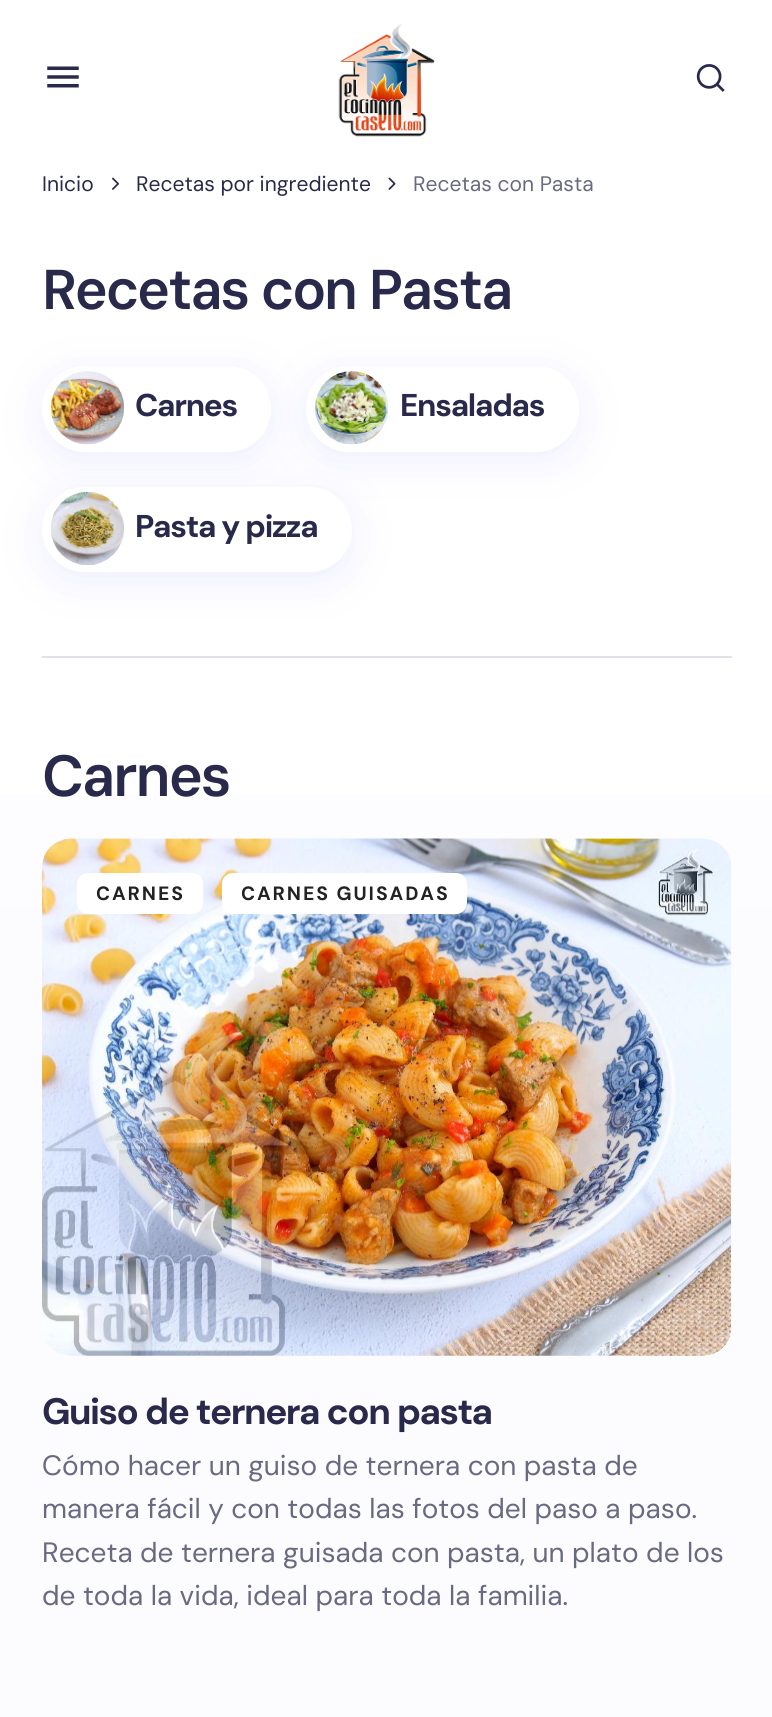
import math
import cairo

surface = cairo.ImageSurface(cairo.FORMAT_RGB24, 772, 1717)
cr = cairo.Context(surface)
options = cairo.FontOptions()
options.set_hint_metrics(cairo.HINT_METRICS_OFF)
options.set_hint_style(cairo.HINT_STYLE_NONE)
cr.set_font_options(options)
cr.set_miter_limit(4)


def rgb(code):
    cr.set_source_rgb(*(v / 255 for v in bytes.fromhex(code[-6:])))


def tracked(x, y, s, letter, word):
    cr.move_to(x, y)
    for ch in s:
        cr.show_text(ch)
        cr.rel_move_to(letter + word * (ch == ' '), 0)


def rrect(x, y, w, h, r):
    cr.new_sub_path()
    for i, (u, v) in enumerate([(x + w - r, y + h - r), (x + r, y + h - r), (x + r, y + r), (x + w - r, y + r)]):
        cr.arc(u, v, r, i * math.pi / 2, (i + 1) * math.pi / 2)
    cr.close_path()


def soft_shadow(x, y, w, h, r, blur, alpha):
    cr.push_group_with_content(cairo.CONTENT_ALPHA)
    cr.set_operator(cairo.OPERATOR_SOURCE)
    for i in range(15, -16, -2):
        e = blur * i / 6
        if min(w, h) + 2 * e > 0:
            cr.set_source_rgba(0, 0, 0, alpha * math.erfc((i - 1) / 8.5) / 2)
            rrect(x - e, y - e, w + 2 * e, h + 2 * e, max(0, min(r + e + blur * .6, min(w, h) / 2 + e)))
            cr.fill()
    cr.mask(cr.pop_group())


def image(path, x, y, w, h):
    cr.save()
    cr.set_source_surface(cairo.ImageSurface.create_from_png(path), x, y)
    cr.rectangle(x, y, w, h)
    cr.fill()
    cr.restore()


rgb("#ffffff")
cr.paint()
gradient = cairo.LinearGradient(387, 0, 387, 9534)
gradient.add_color_stop_rgba(0, 0.992, 0.992, 1, 1)
gradient.add_color_stop_rgba(1, 0.973, 0.969, 1, 1)
cr.set_source(gradient)
cr.rectangle(0, 795, 772, 922)
cr.fill()
image("img/1.png", 47, 66, 32, 22)
image("img/2.png", 338, 24, 97, 113)
image("img/3.png", 696, 64, 29, 28)
image("img/4.png", 112, 177, 7, 13)
image("img/5.png", 388, 177, 8, 13)
rgb("#e1e1e8")
cr.rectangle(42, 656, 690, 2)
cr.fill()
rgb("#7272ff")
soft_shadow(42, 375, 229, 85, 42.5, 22, 0.12)
rgb("#ffffff")
rrect(42, 366, 229, 86, 43)
cr.fill()
image("img/6.png", 50, 371, 75, 74)
rgb("#7272ff")
soft_shadow(306, 375, 273, 85, 42.5, 22, 0.12)
rgb("#ffffff")
rrect(306, 366, 273, 86, 43)
cr.fill()
image("img/7.png", 315, 371, 74, 74)
rgb("#7272ff")
soft_shadow(42, 495, 310, 86, 43, 22, 0.12)
rgb("#ffffff")
rrect(42, 487, 310, 85, 42.5)
cr.fill()
image("img/8.png", 51, 491, 73, 74)
image("img/9.png", 42, 838, 690, 518)
rrect(77, 873, 126, 41, 11)
cr.fill()
rrect(222, 873, 245, 41, 11)
cr.fill()
cr.select_font_face("DM Sans")
cr.set_font_size(21)
rgb("#29294b")
cr.move_to(42, 191)
cr.show_text("Inicio")
cr.move_to(136, 191)
cr.show_text("Recetas por ingrediente")
rgb("#696981")
cr.move_to(413, 191)
cr.show_text("Recetas con Pasta")
cr.select_font_face("DM Sans SemiBold")
cr.set_font_size(56)
rgb("#29294b")
tracked(42, 309, "Recetas con Pasta", -2.25, 1)
cr.select_font_face("DM Sans", cairo.FONT_SLANT_NORMAL, cairo.FONT_WEIGHT_BOLD)
cr.set_font_size(31.5)
for x, y, s in [
    (135, 416, "Carnes"),
    (400, 416, "Ensaladas"),
    (135, 537, "Pasta y pizza"),
]:
    tracked(x, y, s, -1.25, 0)
cr.select_font_face("DM Sans SemiBold")
cr.set_font_size(58)
tracked(42, 796, "Carnes", -2.25, 0)
cr.select_font_face("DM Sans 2", cairo.FONT_SLANT_NORMAL, cairo.FONT_WEIGHT_BOLD)
cr.set_font_size(19.25)
rgb("#222222")
tracked(96, 900, "CARNES", 1.9, 0)
tracked(241, 900, "CARNES GUISADAS", 1.9, 0)
cr.select_font_face("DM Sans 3", cairo.FONT_SLANT_NORMAL, cairo.FONT_WEIGHT_BOLD)
cr.set_font_size(36.75)
rgb("#29294b")
tracked(42, 1424, "Guiso de ternera con pasta", -1.5, 0.5)
cr.select_font_face("DM Sans 2")
cr.set_font_size(28)
rgb("#696981")
for x, y, s in [
    (42, 1475, "Cómo hacer un guiso de ternera con pasta de"),
    (42, 1518, "manera fácil y con todas las fotos del paso a paso."),
    (42, 1562, "Receta de ternera guisada con pasta, un plato de los"),
    (42, 1605, "de toda la vida, ideal para toda la familia."),
]:
    cr.move_to(x, y)
    cr.show_text(s)
surface.write_to_png("page.png")
